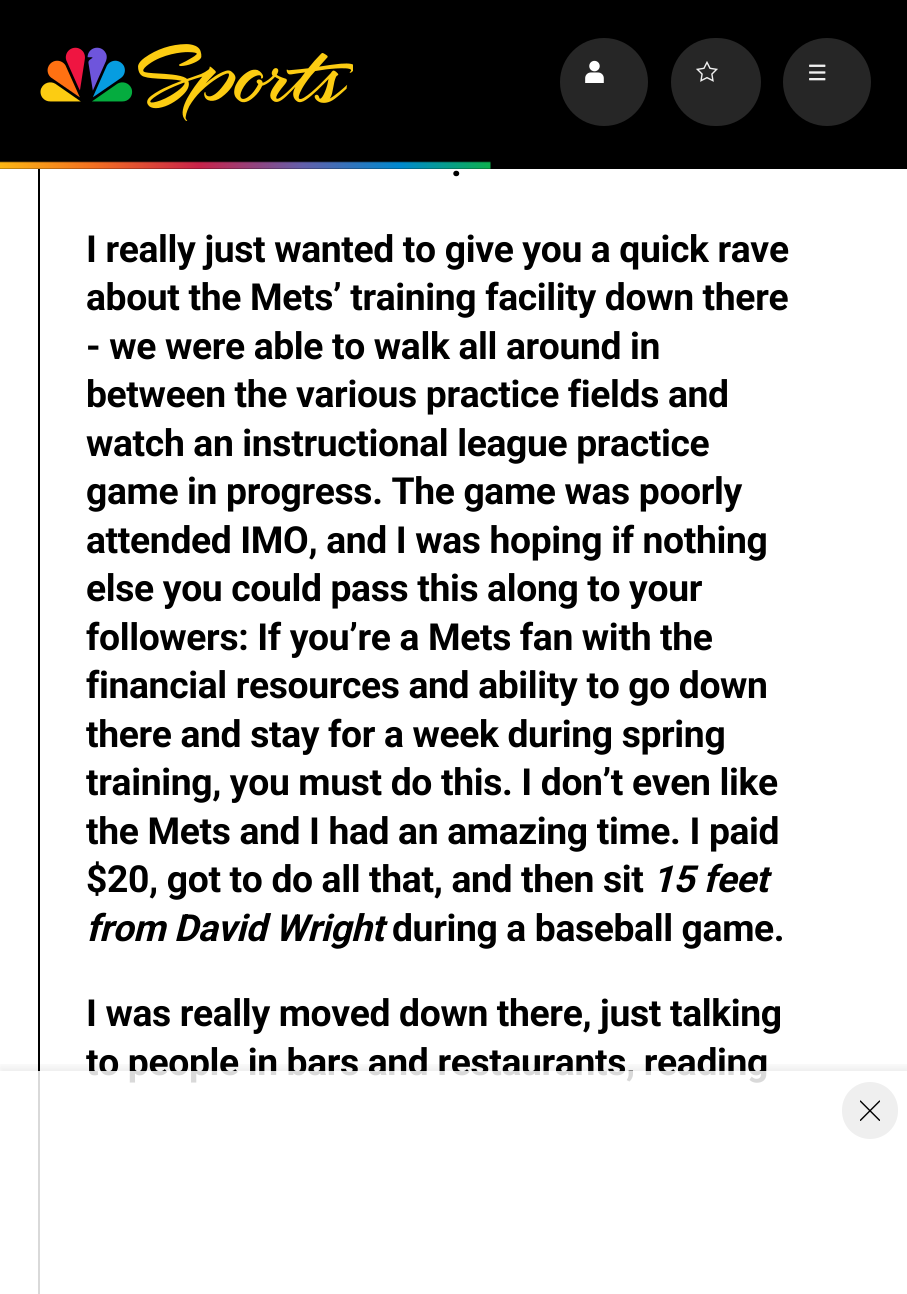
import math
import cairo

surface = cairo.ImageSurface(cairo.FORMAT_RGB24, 907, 1294)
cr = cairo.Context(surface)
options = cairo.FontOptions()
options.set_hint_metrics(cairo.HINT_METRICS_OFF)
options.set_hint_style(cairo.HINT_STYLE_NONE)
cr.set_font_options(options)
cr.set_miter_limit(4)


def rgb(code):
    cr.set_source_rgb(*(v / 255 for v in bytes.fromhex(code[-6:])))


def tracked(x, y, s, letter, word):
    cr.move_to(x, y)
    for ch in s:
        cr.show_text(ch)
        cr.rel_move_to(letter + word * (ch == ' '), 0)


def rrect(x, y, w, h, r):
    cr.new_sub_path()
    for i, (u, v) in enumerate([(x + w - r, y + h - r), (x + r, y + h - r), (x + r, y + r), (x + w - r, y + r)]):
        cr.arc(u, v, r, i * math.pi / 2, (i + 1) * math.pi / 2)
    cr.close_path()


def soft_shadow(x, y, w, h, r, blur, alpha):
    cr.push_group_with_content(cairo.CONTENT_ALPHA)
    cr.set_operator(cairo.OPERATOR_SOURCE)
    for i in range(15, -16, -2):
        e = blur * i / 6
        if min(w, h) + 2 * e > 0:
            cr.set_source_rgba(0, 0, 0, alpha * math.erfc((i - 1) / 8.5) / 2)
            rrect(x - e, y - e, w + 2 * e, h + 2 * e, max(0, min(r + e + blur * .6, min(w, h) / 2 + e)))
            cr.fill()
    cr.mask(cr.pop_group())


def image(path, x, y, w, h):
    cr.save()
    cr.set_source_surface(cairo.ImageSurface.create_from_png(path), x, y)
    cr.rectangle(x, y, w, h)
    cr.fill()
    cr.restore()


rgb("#ffffff")
cr.paint()
rgb("#000000")
cr.rectangle(0, 0, 907, 169)
cr.fill()
image("img/1.png", 40, 44, 313, 77)
rgb("#262626")
cr.arc(604, 82, 44, 0, 2 * math.pi)
cr.fill()
image("img/2.png", 585, 60, 19, 23)
rrect(671, 38, 90, 88, 44)
cr.fill()
image("img/3.png", 696, 61, 22, 21)
cr.arc(827, 82, 44, 0, 2 * math.pi)
cr.fill()
image("img/4.png", 809, 64, 17, 17)
image("img/5.png", 0, 161, 491, 8)
rgb("#000000")
cr.rectangle(38, 169, 2, 1125)
cr.fill()
cr.save()
cr.rectangle(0, 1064, 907, 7)
cr.clip()
rgb("#000000")
soft_shadow(0, 1067, 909, 225, 0, 4.5, 0.08)
cr.restore()
rgb("#efefef")
rrect(842, 1082, 56, 57, 28)
cr.fill()
image("img/6.png", 860, 1100, 20, 21)
cr.select_font_face("Roboto", cairo.FONT_SLANT_NORMAL, cairo.FONT_WEIGHT_BOLD)
cr.set_font_size(37.25)
rgb("#000000")
for x, y, s in [
    (451, 176, "."),
    (86, 262, "I really just wanted to give you a quick rave"),
    (86, 310, "about the Mets’ training facility down there"),
    (86, 359, "- we were able to walk all around in"),
    (86, 407, "between the various practice fields and"),
    (86, 456, "watch an instructional league practice"),
    (86, 504, "game in progress. The game was poorly"),
    (86, 553, "attended IMO, and I was hoping if nothing"),
    (86, 601, "else you could pass this along to your"),
    (86, 650, "followers: If you’re a Mets fan with the"),
    (86, 698, "financial resources and ability to go down"),
    (86, 747, "there and stay for a week during spring"),
    (86, 795, "training, you must do this. I don’t even like"),
    (86, 844, "the Mets and I had an amazing time. I paid"),
    (86, 892, "$20, got to do all that, and then sit"),
]:
    tracked(x, y, s, -0.35, 0)
cr.select_font_face("Roboto", cairo.FONT_SLANT_ITALIC, cairo.FONT_WEIGHT_BOLD)
tracked(652, 892, "15 feet", -0.35, 0)
tracked(86, 941, "from David Wright", -0.35, 0)
cr.select_font_face("Roboto", cairo.FONT_SLANT_NORMAL, cairo.FONT_WEIGHT_BOLD)
for x, y, s in [
    (392, 941, "during a baseball game."),
    (86, 1026, "I was really moved down there, just talking"),
    (86, 1075, "to people in bars and restaurants, reading"),
]:
    tracked(x, y, s, -0.35, 0)
cr.set_source_rgba(1, 1, 1, 0.85)
cr.rectangle(38, 1071, 729, 223)
cr.fill()
surface.write_to_png("page.png")
